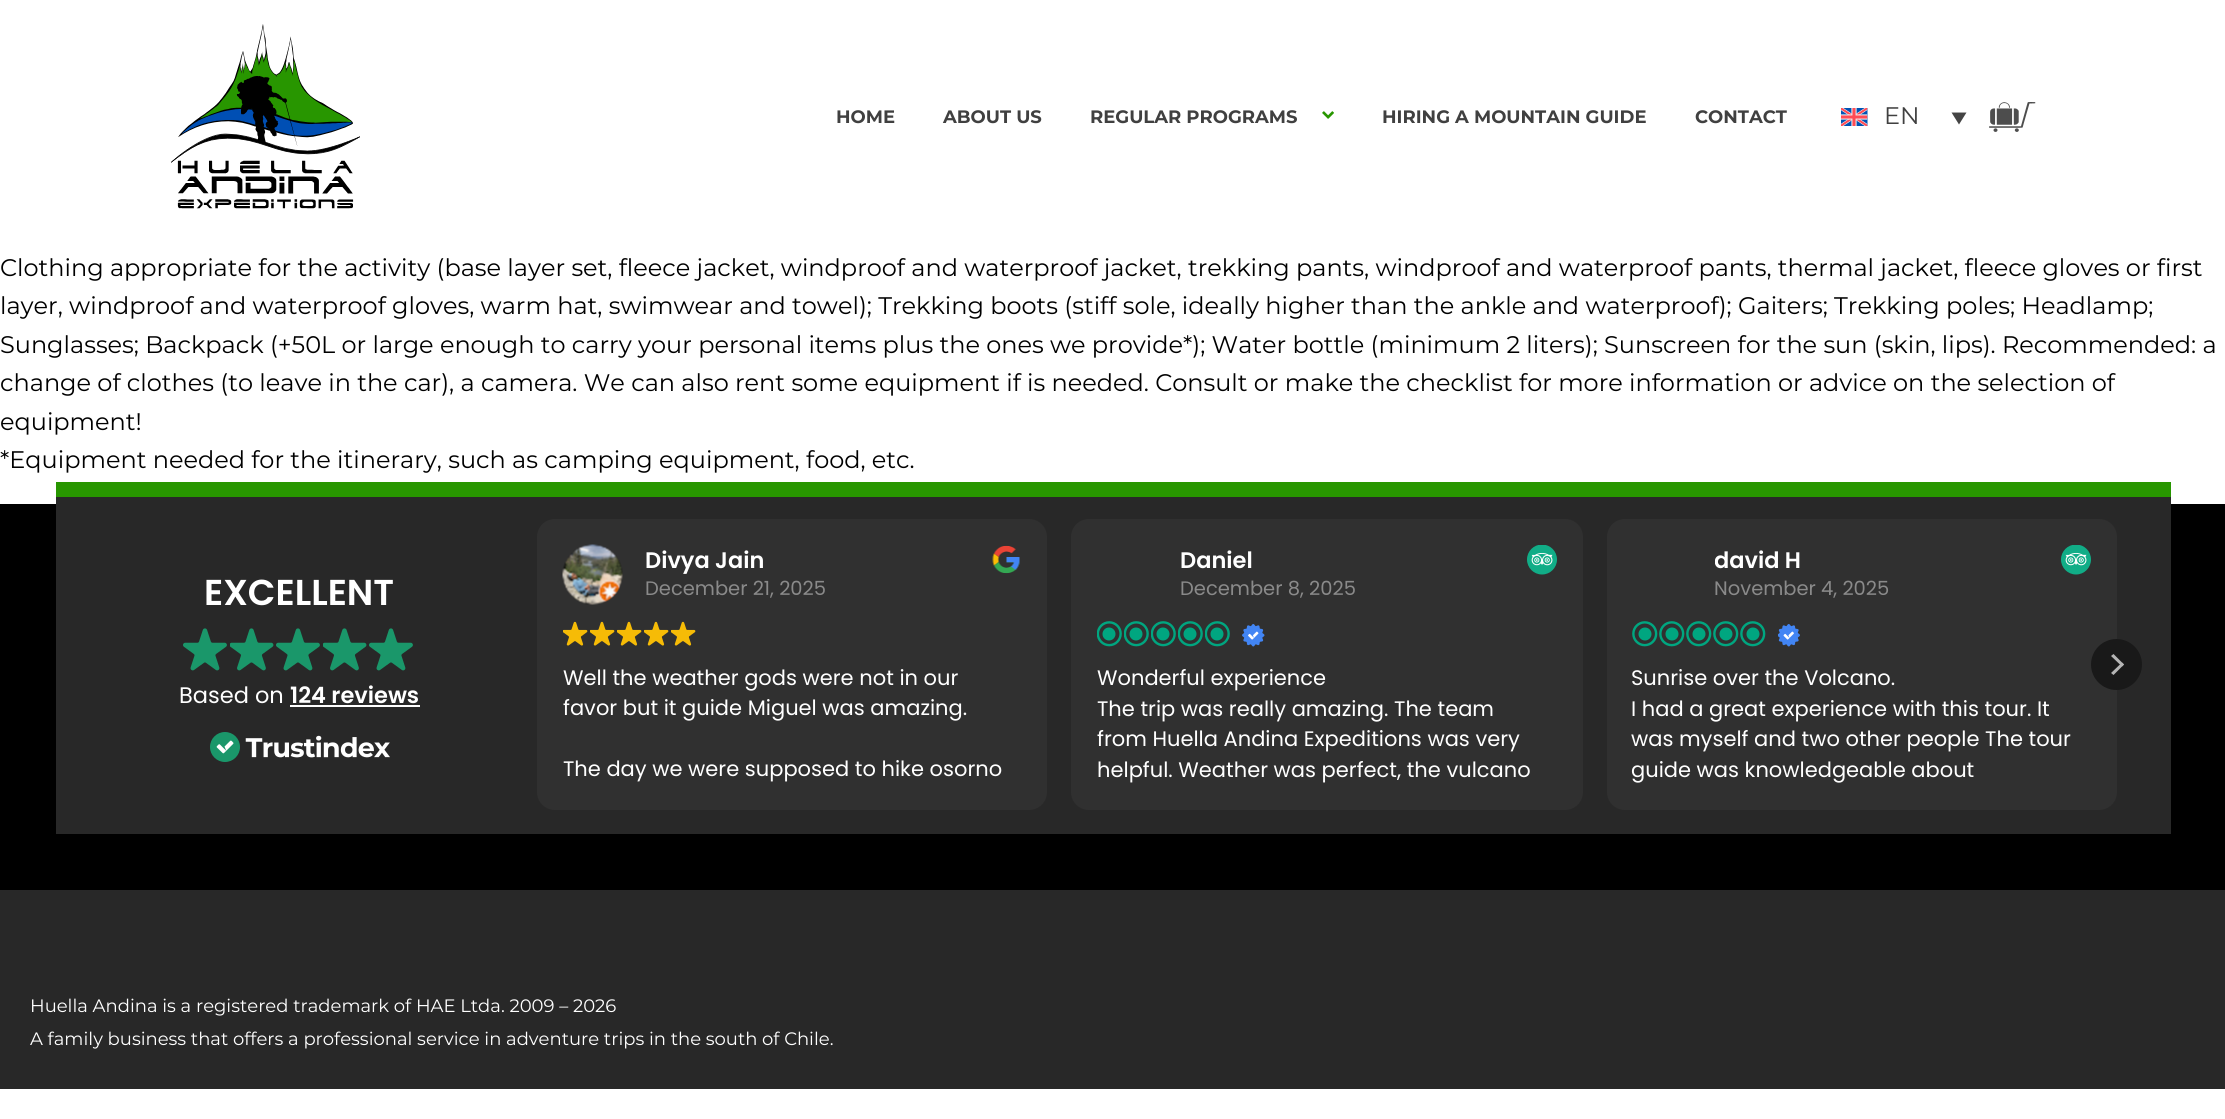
import math
import cairo

surface = cairo.ImageSurface(cairo.FORMAT_RGB24, 2225, 1119)
cr = cairo.Context(surface)
options = cairo.FontOptions()
options.set_hint_metrics(cairo.HINT_METRICS_OFF)
options.set_hint_style(cairo.HINT_STYLE_NONE)
cr.set_font_options(options)
cr.set_miter_limit(4)


def rgb(code):
    cr.set_source_rgb(*(v / 255 for v in bytes.fromhex(code[-6:])))


def rrect(x, y, w, h, r):
    cr.new_sub_path()
    for i, (u, v) in enumerate([(x + w - r, y + h - r), (x + r, y + h - r), (x + r, y + r), (x + w - r, y + r)]):
        cr.arc(u, v, r, i * math.pi / 2, (i + 1) * math.pi / 2)
    cr.close_path()


def image(path, x, y, w, h):
    cr.save()
    cr.set_source_surface(cairo.ImageSurface.create_from_png(path), x, y)
    cr.rectangle(x, y, w, h)
    cr.fill()
    cr.restore()


rgb("#ffffff")
cr.paint()
image("img/1.png", 171, 24, 189, 185)
image("img/2.png", 1322, 111, 12, 8)
image("img/3.png", 1841, 108, 27, 18)
rgb("#444444")
cr.new_path()
cr.move_to(1951.5, 112.5)
cr.line_to(1966.5, 112.5)
cr.line_to(1959, 124.5)
cr.close_path()
cr.fill()
image("img/4.png", 1989, 102, 47, 30)
for x, y, w, h, color in [
    (0, 504, 2225, 386, "#000000"),
    (56, 497, 2115, 337, "#282828"),
    (56, 482, 2115, 15, "#289600"),
]:
    rgb(color)
    cr.rectangle(x, y, w, h)
    cr.fill()
image("img/5.png", 183, 628, 44, 43)
image("img/6.png", 230, 628, 44, 43)
image("img/5.png", 276, 628, 44, 43)
image("img/6.png", 323, 628, 44, 43)
image("img/5.png", 369, 628, 44, 43)
rgb("#ffffff")
cr.rectangle(290, 705, 130, 2)
cr.fill()
image("img/7.png", 210, 732, 180, 30)
rgb("#303030")
rrect(537, 519, 510, 291, 18)
cr.fill()
image("img/8.png", 562, 544, 61, 61)
image("img/9.png", 992, 545, 28, 29)
image("img/10.png", 563, 621, 25, 25)
image("img/10.png", 590, 621, 25, 25)
image("img/10.png", 617, 621, 25, 25)
image("img/10.png", 644, 621, 25, 25)
image("img/10.png", 671, 621, 25, 25)
rrect(1071, 519, 512, 291, 18)
cr.fill()
image("img/11.png", 1527, 545, 30, 30)
image("img/12.png", 1097, 621, 25, 26)
image("img/12.png", 1124, 621, 25, 26)
image("img/12.png", 1151, 621, 25, 26)
image("img/12.png", 1178, 621, 25, 26)
image("img/12.png", 1205, 621, 25, 26)
image("img/13.png", 1242, 624, 23, 23)
rrect(1607, 519, 510, 291, 18)
cr.fill()
image("img/11.png", 2061, 545, 30, 30)
image("img/14.png", 1632, 621, 26, 26)
image("img/14.png", 1659, 621, 26, 26)
image("img/14.png", 1686, 621, 26, 26)
image("img/14.png", 1713, 621, 26, 26)
image("img/14.png", 1740, 621, 26, 26)
image("img/15.png", 1778, 624, 22, 23)
rgb("#191919")
cr.arc(2116.5, 664.5, 24, 0, 2 * math.pi)
cr.fill_preserve()
cr.set_line_width(3)
cr.stroke()
rgb("#b5b5b5")
cr.new_path()
cr.move_to(2122, 666.5)
cr.line_to(2111, 656)
cr.line_to(2113.5, 654)
cr.line_to(2124, 664.5)
cr.close_path()
cr.fill()
cr.new_path()
cr.move_to(2113.5, 675)
cr.line_to(2111, 673)
cr.line_to(2122, 662.5)
cr.line_to(2124, 664.5)
cr.close_path()
cr.fill()
rgb("#282828")
cr.rectangle(0, 890, 2225, 199)
cr.fill()
cr.select_font_face("Montserrat", cairo.FONT_SLANT_NORMAL, cairo.FONT_WEIGHT_BOLD)
cr.set_font_size(18)
rgb("#404040")
for x, y, s in [
    (836, 123, "HOME"),
    (943, 123, "ABOUT US"),
    (1090, 123, "REGULAR PROGRAMS"),
    (1382, 123, "HIRING A MOUNTAIN GUIDE"),
    (1695, 123, "CONTACT"),
]:
    cr.move_to(x, y)
    cr.show_text(s)
cr.select_font_face("Montserrat")
cr.set_font_size(24)
cr.move_to(1884, 124)
cr.show_text("EN")
rgb("#000000")
for x, y, s in [
    (0, 276, "Clothing appropriate for the activity (base layer set, fleece jacket, windproof and waterproof jacket, trekking pants, windproof and waterproof pants, thermal jacket, fleece gloves or first"),
    (0, 314, "layer, windproof and waterproof gloves, warm hat, swimwear and towel); Trekking boots (stiff sole, ideally higher than the ankle and waterproof); Gaiters; Trekking poles; Headlamp;"),
    (0, 353, "Sunglasses; Backpack (+50L or large enough to carry your personal items plus the ones we provide*); Water bottle (minimum 2 liters); Sunscreen for the sun (skin, lips). Recommended: a"),
    (0, 391, "change of clothes (to leave in the car), a camera. We can also rent some equipment if is needed. Consult or make the checklist for more information or advice on the selection of"),
    (0, 430, "equipment!"),
    (0, 468, "*Equipment needed for the itinerary, such as camping equipment, food, etc."),
]:
    cr.move_to(x, y)
    cr.show_text(s)
cr.select_font_face("Poppins SemiBold")
cr.set_font_size(36)
rgb("#ffffff")
cr.move_to(204, 605)
cr.show_text("EXCELLENT")
cr.select_font_face("Poppins")
cr.set_font_size(22.5)
cr.move_to(179, 703)
cr.show_text("Based on")
cr.select_font_face("Poppins SemiBold")
cr.move_to(290, 703)
cr.show_text("124 reviews")
cr.move_to(645, 568)
cr.show_text("Divya Jain")
cr.select_font_face("Poppins")
cr.set_font_size(19.5)
rgb("#8a8a8a")
cr.move_to(645, 595)
cr.show_text("December 21, 2025")
cr.set_font_size(21)
rgb("#ffffff")
for x, y, s in [
    (563, 685, "Well the weather gods were not in our"),
    (563, 715, "favor but it guide Miguel was amazing."),
    (563, 776, "The day we were supposed to hike osorno"),
]:
    cr.move_to(x, y)
    cr.show_text(s)
cr.select_font_face("Poppins SemiBold")
cr.set_font_size(22.5)
cr.move_to(1180, 568)
cr.show_text("Daniel")
cr.select_font_face("Poppins")
cr.set_font_size(19.5)
rgb("#8a8a8a")
cr.move_to(1180, 595)
cr.show_text("December 8, 2025")
cr.set_font_size(21)
rgb("#ffffff")
for x, y, s in [
    (1097, 685, "Wonderful experience"),
    (1097, 716, "The trip was really amazing. The team"),
    (1097, 746, "from Huella Andina Expeditions was very"),
    (1097, 777, "helpful. Weather was perfect, the vulcano"),
]:
    cr.move_to(x, y)
    cr.show_text(s)
cr.save()
cr.rectangle(1715, 545, 376, 31)
cr.clip()
cr.select_font_face("Poppins SemiBold")
cr.set_font_size(22.5)
cr.move_to(1714, 568)
cr.show_text("david H")
cr.restore()
cr.set_font_size(19.5)
rgb("#8a8a8a")
cr.move_to(1714, 595)
cr.show_text("November 4, 2025")
cr.set_font_size(21)
rgb("#ffffff")
for x, y, s in [
    (1631, 685, "Sunrise over the Volcano."),
    (1631, 716, "I had a great experience with this tour. It"),
    (1631, 746, "was myself and two other people The tour"),
    (1631, 777, "guide was knowledgeable about"),
]:
    cr.move_to(x, y)
    cr.show_text(s)
cr.select_font_face("Montserrat")
cr.set_font_size(18)
cr.move_to(30, 1012)
cr.show_text("Huella Andina is a registered trademark of HAE Ltda. 2009 – 2026")
cr.move_to(30, 1045)
cr.show_text("A family business that offers a professional service in adventure trips in the south of Chile.")
surface.write_to_png("page.png")
